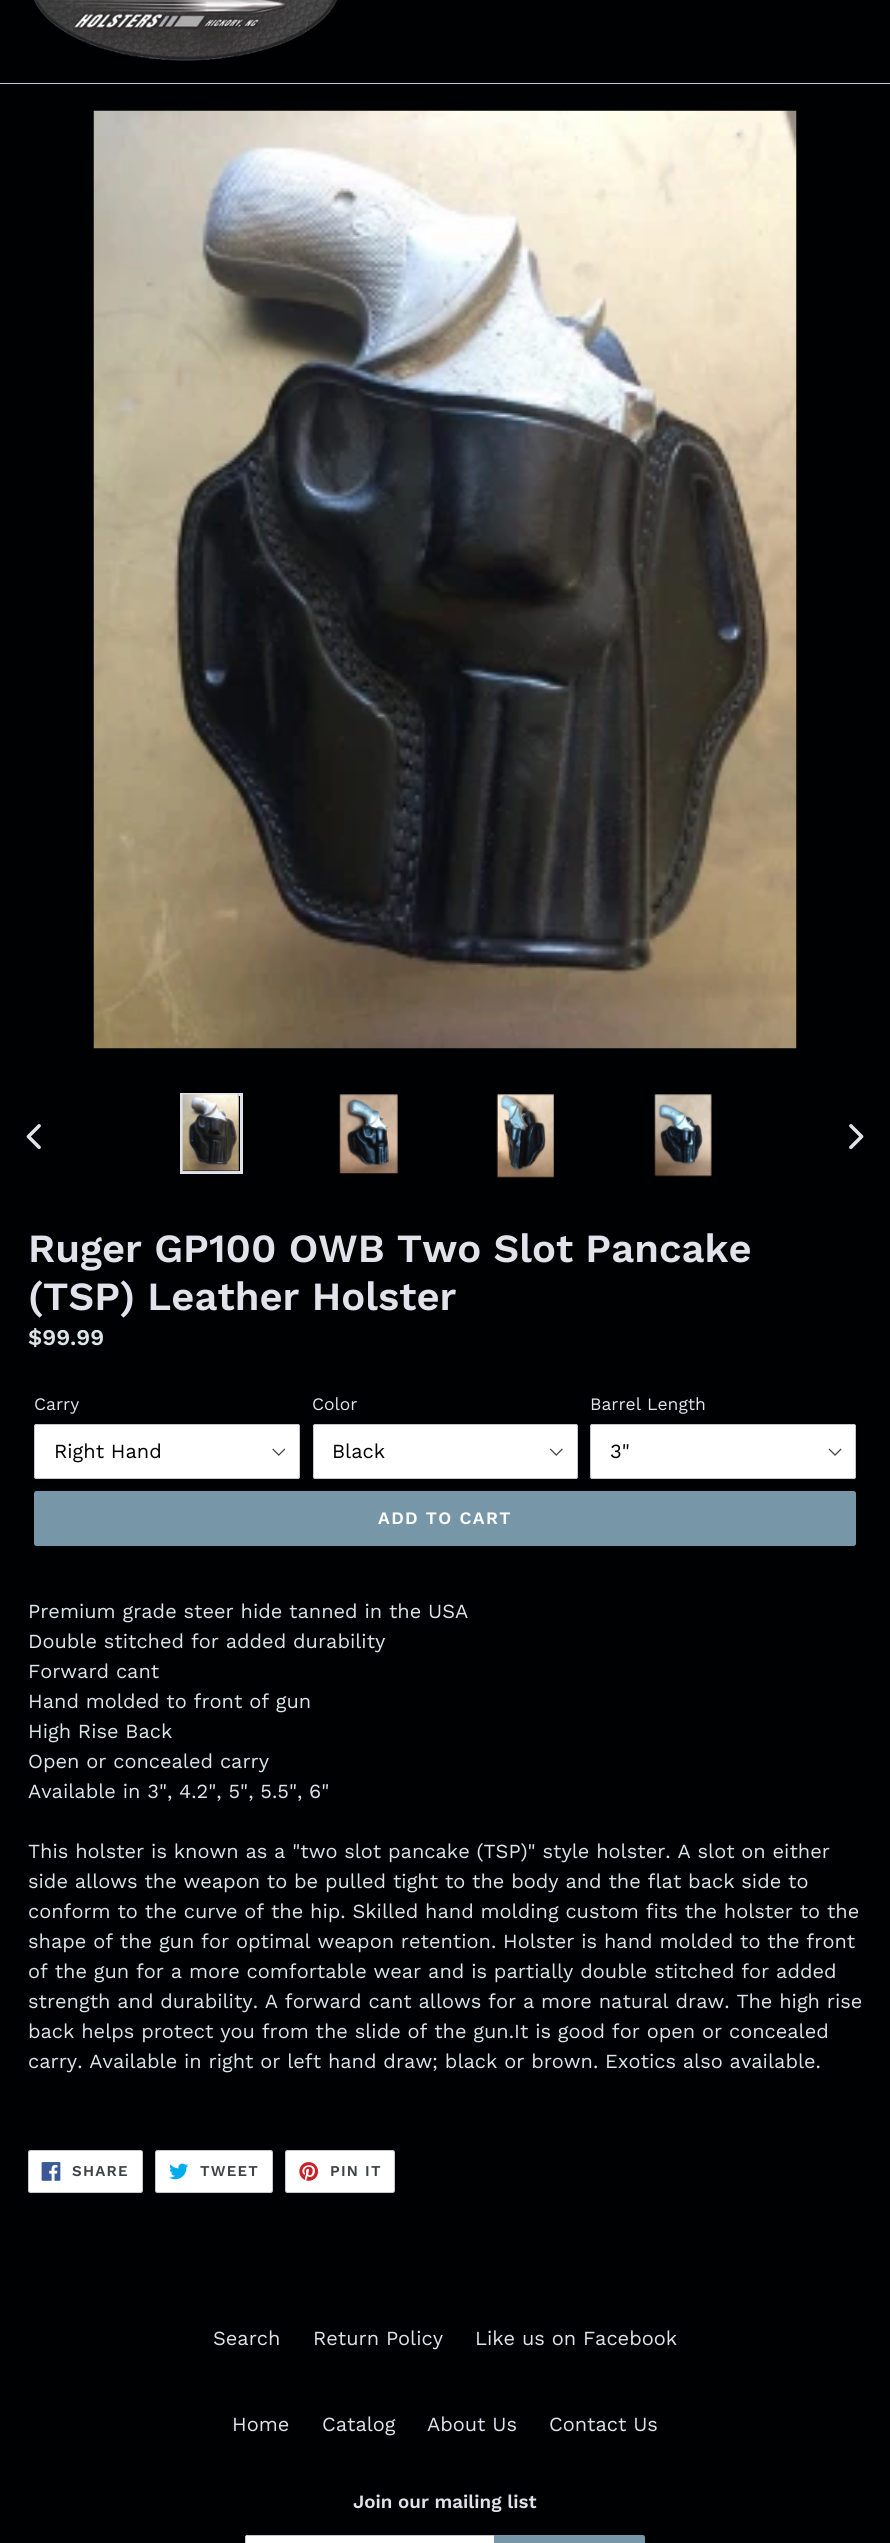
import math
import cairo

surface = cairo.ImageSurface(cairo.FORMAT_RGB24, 890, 2543)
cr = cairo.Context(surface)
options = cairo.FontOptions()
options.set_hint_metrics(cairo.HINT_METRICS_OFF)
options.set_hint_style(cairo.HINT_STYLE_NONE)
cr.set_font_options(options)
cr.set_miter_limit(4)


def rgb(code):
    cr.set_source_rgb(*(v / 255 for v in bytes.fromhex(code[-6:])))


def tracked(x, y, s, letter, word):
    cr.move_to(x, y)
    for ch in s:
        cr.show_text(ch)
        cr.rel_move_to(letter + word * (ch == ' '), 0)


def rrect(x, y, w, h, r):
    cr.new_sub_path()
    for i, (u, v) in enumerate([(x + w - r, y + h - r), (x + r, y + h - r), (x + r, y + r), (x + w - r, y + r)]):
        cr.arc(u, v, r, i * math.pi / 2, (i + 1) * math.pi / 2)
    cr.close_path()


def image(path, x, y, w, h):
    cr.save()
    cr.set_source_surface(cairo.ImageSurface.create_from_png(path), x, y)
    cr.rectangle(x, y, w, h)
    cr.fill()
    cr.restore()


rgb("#000103")
cr.paint()
rgb("#c8c6ce")
cr.rectangle(0, 83, 890, 1)
cr.fill()
image("img/1.png", 34, 0, 303, 61)
image("img/2.png", 93, 110, 704, 939)
image("img/3.png", 26, 1124, 15, 25)
cr.rectangle(181.5, 1094.5, 60, 78)
rgb("#e2e2eb")
cr.set_line_width(3)
cr.stroke()
image("img/4.png", 181, 1094, 58, 78)
image("img/5.png", 339, 1094, 59, 80)
image("img/6.png", 496, 1094, 58, 84)
image("img/7.png", 654, 1094, 58, 83)
image("img/8.png", 849, 1124, 15, 25)
rgb("#ffffff")
rrect(34, 1424, 266, 55, 2.5)
cr.fill()
image("img/9.png", 272, 1448, 14, 8)
rrect(34.5, 1424.5, 265, 54, 2)
rgb("#c8c6ce")
cr.set_line_width(1)
cr.stroke()
rgb("#ffffff")
rrect(313, 1424, 265, 55, 2.5)
cr.fill()
image("img/10.png", 549, 1448, 14, 8)
rrect(313.5, 1424.5, 264, 54, 2)
rgb("#c8c6ce")
cr.stroke()
rgb("#ffffff")
rrect(590, 1424, 266, 55, 2.5)
cr.fill()
image("img/11.png", 828, 1448, 14, 8)
rrect(590.5, 1424.5, 265, 54, 2)
rgb("#c8c6ce")
cr.stroke()
rgb("#7796a8")
rrect(34, 1491, 822, 55, 2.5)
cr.fill()
rgb("#ffffff")
rrect(28.5, 2150.5, 114, 42, 2)
cr.fill_preserve()
rgb("#c8c6ce")
cr.stroke()
image("img/12.png", 41, 2162, 20, 19)
rgb("#ffffff")
rrect(155.5, 2150.5, 117, 42, 2)
cr.fill_preserve()
rgb("#c8c6ce")
cr.stroke()
image("img/13.png", 169, 2163, 20, 17)
rgb("#ffffff")
rrect(285.5, 2150.5, 109, 42, 2)
cr.fill_preserve()
rgb("#c8c6ce")
cr.stroke()
image("img/14.png", 299, 2162, 20, 19)
rgb("#ffffff")
cr.new_path()
cr.move_to(247.5, 2535)
cr.line_to(494, 2535)
cr.line_to(494, 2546)
cr.line_to(247.5, 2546)
cr.curve_to(246, 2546, 245, 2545, 245, 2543.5)
cr.line_to(245, 2537.5)
cr.curve_to(245, 2536, 246, 2535, 247.5, 2535)
cr.close_path()
cr.fill()
rgb("#c8c6ce")
cr.rectangle(246, 2535, 248, 1)
cr.fill()
cr.rectangle(245, 2536, 1, 7)
cr.fill()
rgb("#7796a8")
cr.new_path()
cr.move_to(494, 2535)
cr.line_to(642.5, 2535)
cr.curve_to(644, 2535, 645, 2536, 645, 2537.5)
cr.line_to(645, 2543.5)
cr.curve_to(645, 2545, 644, 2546, 642.5, 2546)
cr.line_to(494, 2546)
cr.close_path()
cr.fill()
cr.select_font_face("Work Sans SemiBold")
cr.set_font_size(40)
rgb("#e2e2eb")
cr.move_to(28, 1262)
cr.show_text("Ruger GP100 OWB Two Slot Pancake")
cr.move_to(28, 1310)
cr.show_text("(TSP) Leather Holster")
cr.set_font_size(22.5)
rgb("#dce6e8")
cr.move_to(28, 1345)
cr.show_text("$99.99")
cr.select_font_face("Work Sans")
cr.set_font_size(17.5)
rgb("#e2e2eb")
cr.move_to(34, 1410)
cr.show_text("Carry")
cr.set_font_size(20)
rgb("#000000")
cr.move_to(54, 1458)
cr.show_text("Right Hand")
cr.set_font_size(17.5)
rgb("#e2e2eb")
cr.move_to(312, 1410)
cr.show_text("Color")
cr.set_font_size(20)
rgb("#000000")
cr.move_to(332, 1458)
cr.show_text("Black")
cr.set_font_size(17.5)
rgb("#e2e2eb")
cr.move_to(590, 1410)
cr.show_text("Barrel Length")
cr.set_font_size(20)
rgb("#000000")
cr.move_to(610, 1458)
cr.show_text("3\"")
cr.select_font_face("Work Sans SemiBold")
cr.set_font_size(17.5)
rgb("#ffffff")
tracked(378, 1524, "ADD TO CART", 1.4, 0)
cr.select_font_face("Work Sans")
cr.set_font_size(20)
rgb("#dce6e8")
for x, y, s in [
    (28, 1618, "Premium grade steer hide tanned in the USA"),
    (28, 1648, "Double stitched for added durability"),
    (28, 1678, "Forward cant"),
    (28, 1708, "Hand molded to front of gun"),
    (28, 1738, "High Rise Back"),
    (28, 1768, "Open or concealed carry"),
    (28, 1798, "Available in 3\", 4.2\", 5\", 5.5\", 6\""),
    (28, 1858, "This holster is known as a \"two slot pancake (TSP)\" style holster. A slot on either"),
    (28, 1888, "side allows the weapon to be pulled tight to the body and the flat back side to"),
    (28, 1918, "conform to the curve of the hip. Skilled hand molding custom fits the holster to the"),
    (28, 1948, "shape of the gun for optimal weapon retention. Holster is hand molded to the front"),
    (28, 1978, "of the gun for a more comfortable wear and is partially double stitched for added"),
    (28, 2008, "strength and durability. A forward cant allows for a more natural draw. The high rise"),
    (28, 2038, "back helps protect you from the slide of the gun.It is good for open or concealed"),
    (28, 2068, "carry. Available in right or left hand draw; black or brown. Exotics also available."),
]:
    cr.move_to(x, y)
    cr.show_text(s)
cr.select_font_face("Work Sans SemiBold")
cr.set_font_size(15)
rgb("#3d4246")
for x, y, s in [
    (72, 2176, "SHARE"),
    (200, 2176, "TWEET"),
    (330, 2176, "PIN IT"),
]:
    tracked(x, y, s, 1.25, 0)
cr.select_font_face("Work Sans")
cr.set_font_size(20)
rgb("#e2e2eb")
for x, y, s in [
    (213, 2345, "Search"),
    (313, 2345, "Return Policy"),
    (475, 2345, "Like us on Facebook"),
    (232, 2431, "Home"),
    (322, 2431, "Catalog"),
    (427, 2431, "About Us"),
    (549, 2431, "Contact Us"),
]:
    cr.move_to(x, y)
    cr.show_text(s)
cr.select_font_face("Work Sans SemiBold")
cr.set_font_size(18.75)
cr.move_to(353, 2508)
cr.show_text("Join our mailing list")
surface.write_to_png("page.png")
